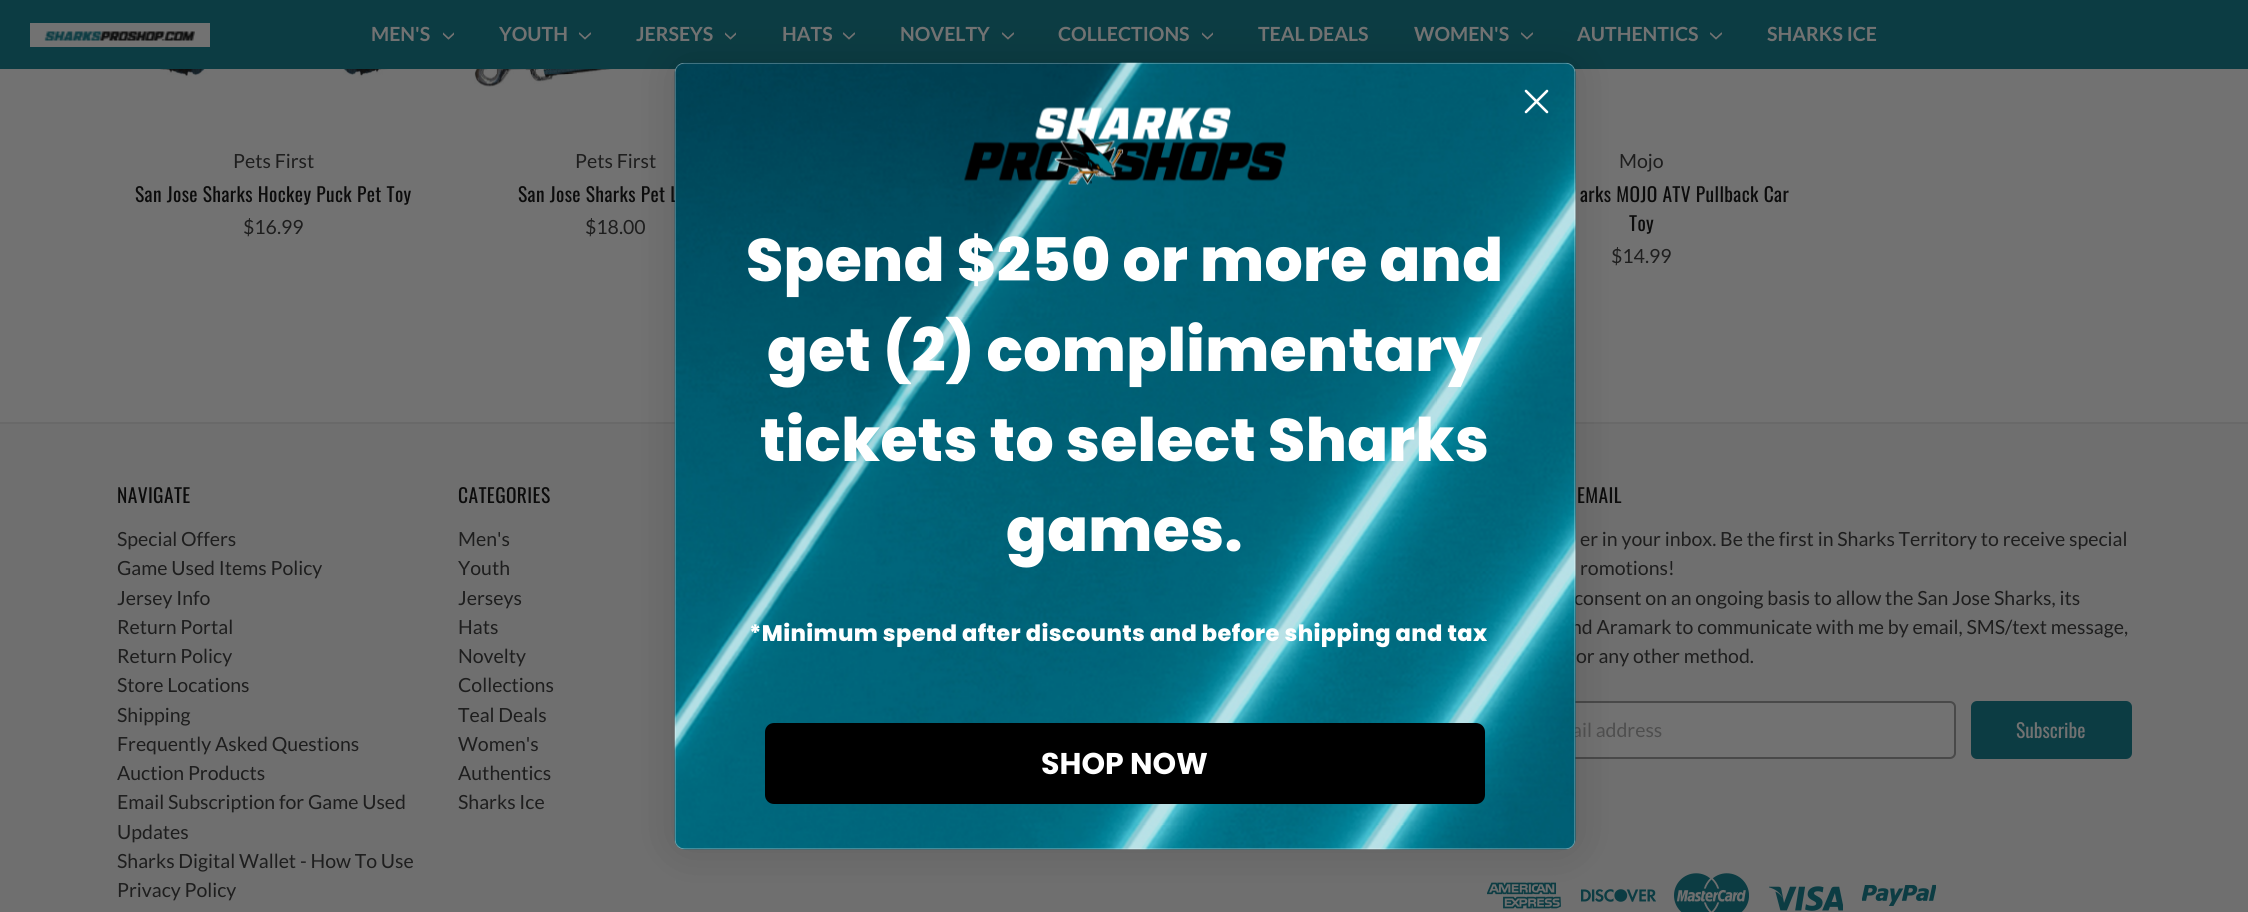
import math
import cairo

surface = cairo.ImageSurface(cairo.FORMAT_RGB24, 2248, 912)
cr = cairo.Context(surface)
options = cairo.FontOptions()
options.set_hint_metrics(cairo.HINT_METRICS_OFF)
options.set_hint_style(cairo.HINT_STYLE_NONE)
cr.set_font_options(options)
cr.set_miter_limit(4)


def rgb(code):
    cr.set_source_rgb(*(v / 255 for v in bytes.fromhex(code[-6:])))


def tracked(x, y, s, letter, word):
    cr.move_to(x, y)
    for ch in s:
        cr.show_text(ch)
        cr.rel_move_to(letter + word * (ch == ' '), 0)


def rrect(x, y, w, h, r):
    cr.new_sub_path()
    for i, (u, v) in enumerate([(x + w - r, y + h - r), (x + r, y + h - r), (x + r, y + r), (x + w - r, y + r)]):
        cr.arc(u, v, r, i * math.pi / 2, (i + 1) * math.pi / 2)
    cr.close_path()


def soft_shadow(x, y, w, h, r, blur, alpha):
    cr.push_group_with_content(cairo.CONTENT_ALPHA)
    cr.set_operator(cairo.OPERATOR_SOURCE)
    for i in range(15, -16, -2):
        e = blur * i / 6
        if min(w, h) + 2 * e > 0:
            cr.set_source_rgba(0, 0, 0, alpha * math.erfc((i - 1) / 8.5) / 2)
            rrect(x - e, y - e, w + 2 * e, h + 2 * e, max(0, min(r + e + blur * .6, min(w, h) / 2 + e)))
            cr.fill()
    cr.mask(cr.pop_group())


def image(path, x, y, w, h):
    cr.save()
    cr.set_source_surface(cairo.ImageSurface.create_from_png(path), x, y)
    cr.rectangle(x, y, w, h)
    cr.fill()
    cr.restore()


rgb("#727272")
cr.paint()
rgb("#0c3c43")
cr.rectangle(0, 0, 2248, 69)
cr.fill()
rgb("#727272")
cr.rectangle(30, 23, 180, 24)
cr.fill()
image("img/1.png", 44, 31, 151, 10)
image("img/2.png", 443, 32, 11, 8)
image("img/3.png", 579, 32, 12, 8)
image("img/2.png", 725, 32, 11, 8)
image("img/3.png", 843, 32, 12, 8)
image("img/3.png", 1002, 32, 12, 8)
image("img/2.png", 1202, 32, 11, 8)
image("img/3.png", 1521, 32, 12, 8)
image("img/3.png", 1710, 32, 12, 8)
image("img/4.png", 159, 69, 230, 9)
image("img/5.png", 474, 69, 202, 18)
rgb("#6f6f6f")
cr.rectangle(0, 424, 2248, 488)
cr.fill()
rgb("#696969")
cr.rectangle(0, 422, 2248, 2)
cr.fill()
rgb("#727272")
rrect(1480, 702, 475, 56, 5)
cr.fill_preserve()
rgb("#494949")
cr.stroke()
image("img/8.png", 1487, 882, 74, 27)
image("img/9.png", 1581, 889, 75, 13)
rgb("#000000")
soft_shadow(675, 63, 900, 786, 9, 22.5, 0.15)
rgb("#0c3c43")
rrect(1972, 702, 159, 56, 5)
cr.fill_preserve()
cr.stroke()
image("img/10.png", 1674, 873, 75, 39)
image("img/11.png", 1769, 886, 74, 25)
image("img/12.png", 1862, 884, 74, 22)
cr.select_font_face("Lato", cairo.FONT_SLANT_NORMAL, cairo.FONT_WEIGHT_BOLD)
cr.set_font_size(19.5)
rgb("#727272")
for x, y, s in [
    (371, 41, "MEN'S"),
    (499, 41, "YOUTH"),
    (636, 41, "JERSEYS"),
    (782, 41, "HATS"),
    (900, 41, "NOVELTY"),
    (1058, 41, "COLLECTIONS"),
    (1258, 41, "TEAL DEALS"),
    (1414, 41, "WOMEN'S"),
    (1577, 41, "AUTHENTICS"),
    (1767, 41, "SHARKS ICE"),
]:
    cr.move_to(x, y)
    cr.show_text(s)
cr.select_font_face("Lato")
rgb("#1e1e1e")
cr.move_to(233, 168)
cr.show_text("Pets First")
cr.select_font_face("Oswald")
rgb("#0c0c0c")
tracked(135, 202, "San Jose Sharks Hockey Puck Pet Toy", 0.38, 0)
cr.select_font_face("Lato")
rgb("#1e1e1e")
cr.move_to(243, 234)
cr.show_text("$16.99")
cr.move_to(575, 168)
cr.show_text("Pets First")
cr.select_font_face("Oswald")
rgb("#0c0c0c")
tracked(518, 202, "San Jose Sharks Pet L", 0.38, 0)
cr.select_font_face("Lato")
rgb("#1e1e1e")
cr.move_to(585, 234)
cr.show_text("$18.00")
cr.move_to(1619, 168)
cr.show_text("Mojo")
cr.select_font_face("Oswald")
rgb("#0c0c0c")
tracked(1580, 202, "arks MOJO ATV Pullback Car", 0.38, 0)
tracked(1629, 231, "Toy", 0.38, 0)
cr.select_font_face("Lato")
rgb("#1e1e1e")
cr.move_to(1611, 263)
cr.show_text("$14.99")
cr.select_font_face("Oswald")
rgb("#0c0c0c")
tracked(117, 503, "NAVIGATE", 0.38, 0)
cr.select_font_face("Lato")
rgb("#1e1e1e")
for x, y, s in [
    (117, 546, "Special Offers"),
    (117, 575, "Game Used Items Policy"),
    (117, 605, "Jersey Info"),
    (117, 634, "Return Portal"),
    (117, 663, "Return Policy"),
    (117, 692, "Store Locations"),
    (117, 722, "Shipping"),
    (117, 751, "Frequently Asked Questions"),
    (117, 780, "Auction Products"),
    (117, 809, "Email Subscription for Game Used"),
    (117, 839, "Updates"),
    (117, 868, "Sharks Digital Wallet - How To Use"),
    (117, 897, "Privacy Policy"),
]:
    cr.move_to(x, y)
    cr.show_text(s)
cr.select_font_face("Oswald")
rgb("#0c0c0c")
tracked(458, 503, "CATEGORIES", 0.38, 0)
cr.select_font_face("Lato")
rgb("#1e1e1e")
for x, y, s in [
    (458, 546, "Men's"),
    (458, 575, "Youth"),
    (458, 605, "Jerseys"),
    (458, 634, "Hats"),
    (458, 663, "Novelty"),
    (458, 692, "Collections"),
    (458, 722, "Teal Deals"),
    (458, 751, "Women's"),
    (458, 780, "Authentics"),
    (458, 809, "Sharks Ice"),
]:
    cr.move_to(x, y)
    cr.show_text(s)
cr.select_font_face("Oswald")
rgb("#0c0c0c")
tracked(1577, 503, "EMAIL", 0.38, 0)
cr.select_font_face("Lato")
rgb("#1e1e1e")
for x, y, s in [
    (1580, 546, "er in your inbox. Be the first in Sharks Territory to receive special"),
    (1580, 575, "romotions!"),
    (1574, 605, "consent on an ongoing basis to allow the San Jose Sharks, its"),
    (1571, 634, "nd Aramark to communicate with me by email, SMS/text message,"),
    (1576, 663, "or any other method."),
]:
    cr.move_to(x, y)
    cr.show_text(s)
rgb("#4e4e4e")
cr.move_to(1572, 737)
cr.show_text("ail address")
rgb("#ffffff")
rrect(675, 63, 900, 786, 9)
cr.fill()
image("img/6.png", 674, 62, 902, 788)
cr.new_path()
cr.move_to(1526, 91)
cr.line_to(1547, 112)
cr.move_to(1526, 112)
cr.line_to(1547, 91)
cr.close_path()
cr.set_line_width(2.6)
cr.set_line_cap(cairo.LINE_CAP_ROUND)
cr.set_line_join(cairo.LINE_JOIN_ROUND)
cr.stroke()
rgb("#000000")
rrect(765, 723, 720, 81, 9)
cr.fill()
cr.select_font_face("Poppins", cairo.FONT_SLANT_NORMAL, cairo.FONT_WEIGHT_BOLD)
cr.set_font_size(30)
rgb("#ffffff")
cr.move_to(1041, 774)
cr.show_text("SHOP NOW")
cr.select_font_face("Poppins ExtraBold")
cr.set_font_size(22.5)
tracked(749, 641, "*Minimum spend after discounts and before shipping and tax", 0.38, 0)
cr.set_font_size(60)
for x, y, s in [
    (1006, 551, "games."),
    (760, 461, "tickets to select Sharks"),
    (767, 371, "get (2) complimentary"),
    (746, 281, "Spend $250 or more and"),
]:
    tracked(x, y, s, 0.38, 0)
image("img/7.png", 964, 107, 322, 78)
cr.select_font_face("Oswald")
cr.set_font_size(19.5)
rgb("#727272")
cr.move_to(2016, 738)
cr.show_text("Subscribe")
surface.write_to_png("page.png")
